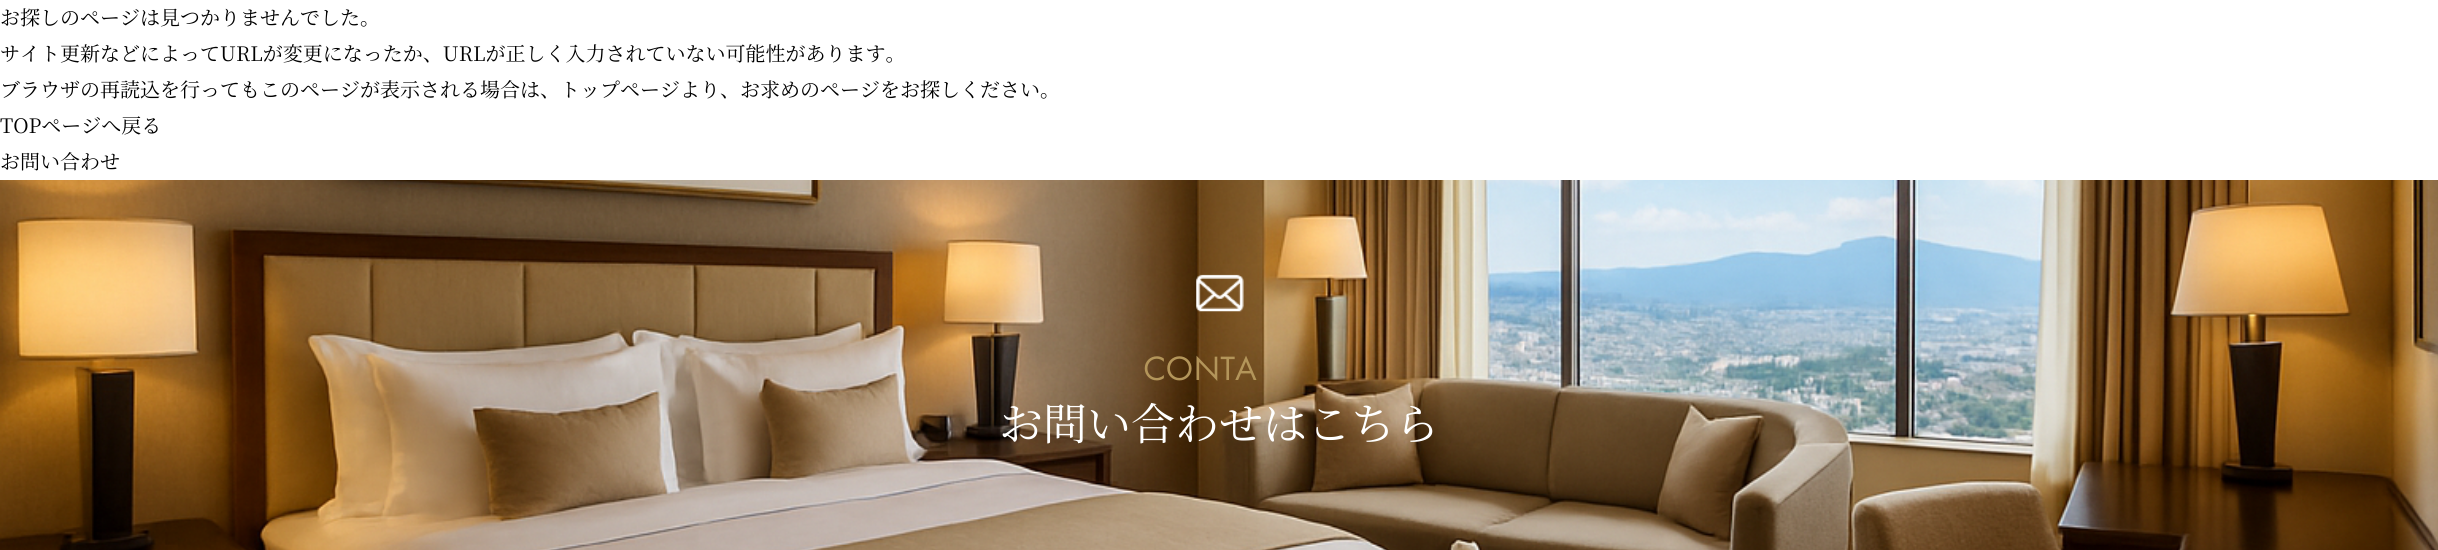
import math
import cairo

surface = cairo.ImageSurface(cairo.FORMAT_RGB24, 2438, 550)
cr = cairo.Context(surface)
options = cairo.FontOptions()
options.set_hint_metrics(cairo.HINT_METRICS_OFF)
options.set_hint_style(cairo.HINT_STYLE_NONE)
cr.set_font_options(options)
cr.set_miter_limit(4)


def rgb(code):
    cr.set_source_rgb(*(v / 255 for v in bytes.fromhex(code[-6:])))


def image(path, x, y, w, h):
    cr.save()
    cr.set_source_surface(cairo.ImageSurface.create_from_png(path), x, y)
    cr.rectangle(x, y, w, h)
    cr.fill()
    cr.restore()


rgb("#ffffff")
cr.paint()
image("img/1.png", 0, 180, 2438, 370)
image("img/2.png", 1196, 274, 48, 38)
cr.select_font_face("Noto Serif JP")
cr.set_font_size(20)
rgb("#000000")
for x, y, s in [
    (0, 25, "お探しのページは見つかりませんでした。"),
    (0, 61, "サイト更新などによってURLが変更になったか、URLが正しく入力されていない可能性があります。"),
    (0, 97, "ブラウザの再読込を行ってもこのページが表示される場合は、トップページより、お求めのページをお探しください。"),
    (0, 133, "TOPページへ戻る"),
    (0, 169, "お問い合わせ"),
]:
    cr.move_to(x, y)
    cr.show_text(s)
cr.select_font_face("Futura PT")
cr.set_font_size(35)
rgb("#b3955a")
cr.move_to(1143, 380)
cr.show_text("CONTA")
cr.select_font_face("Noto Serif JP")
cr.set_font_size(44)
rgb("#ffffff")
cr.move_to(999, 440)
cr.show_text("お問い合わせはこちら")
surface.write_to_png("page.png")
